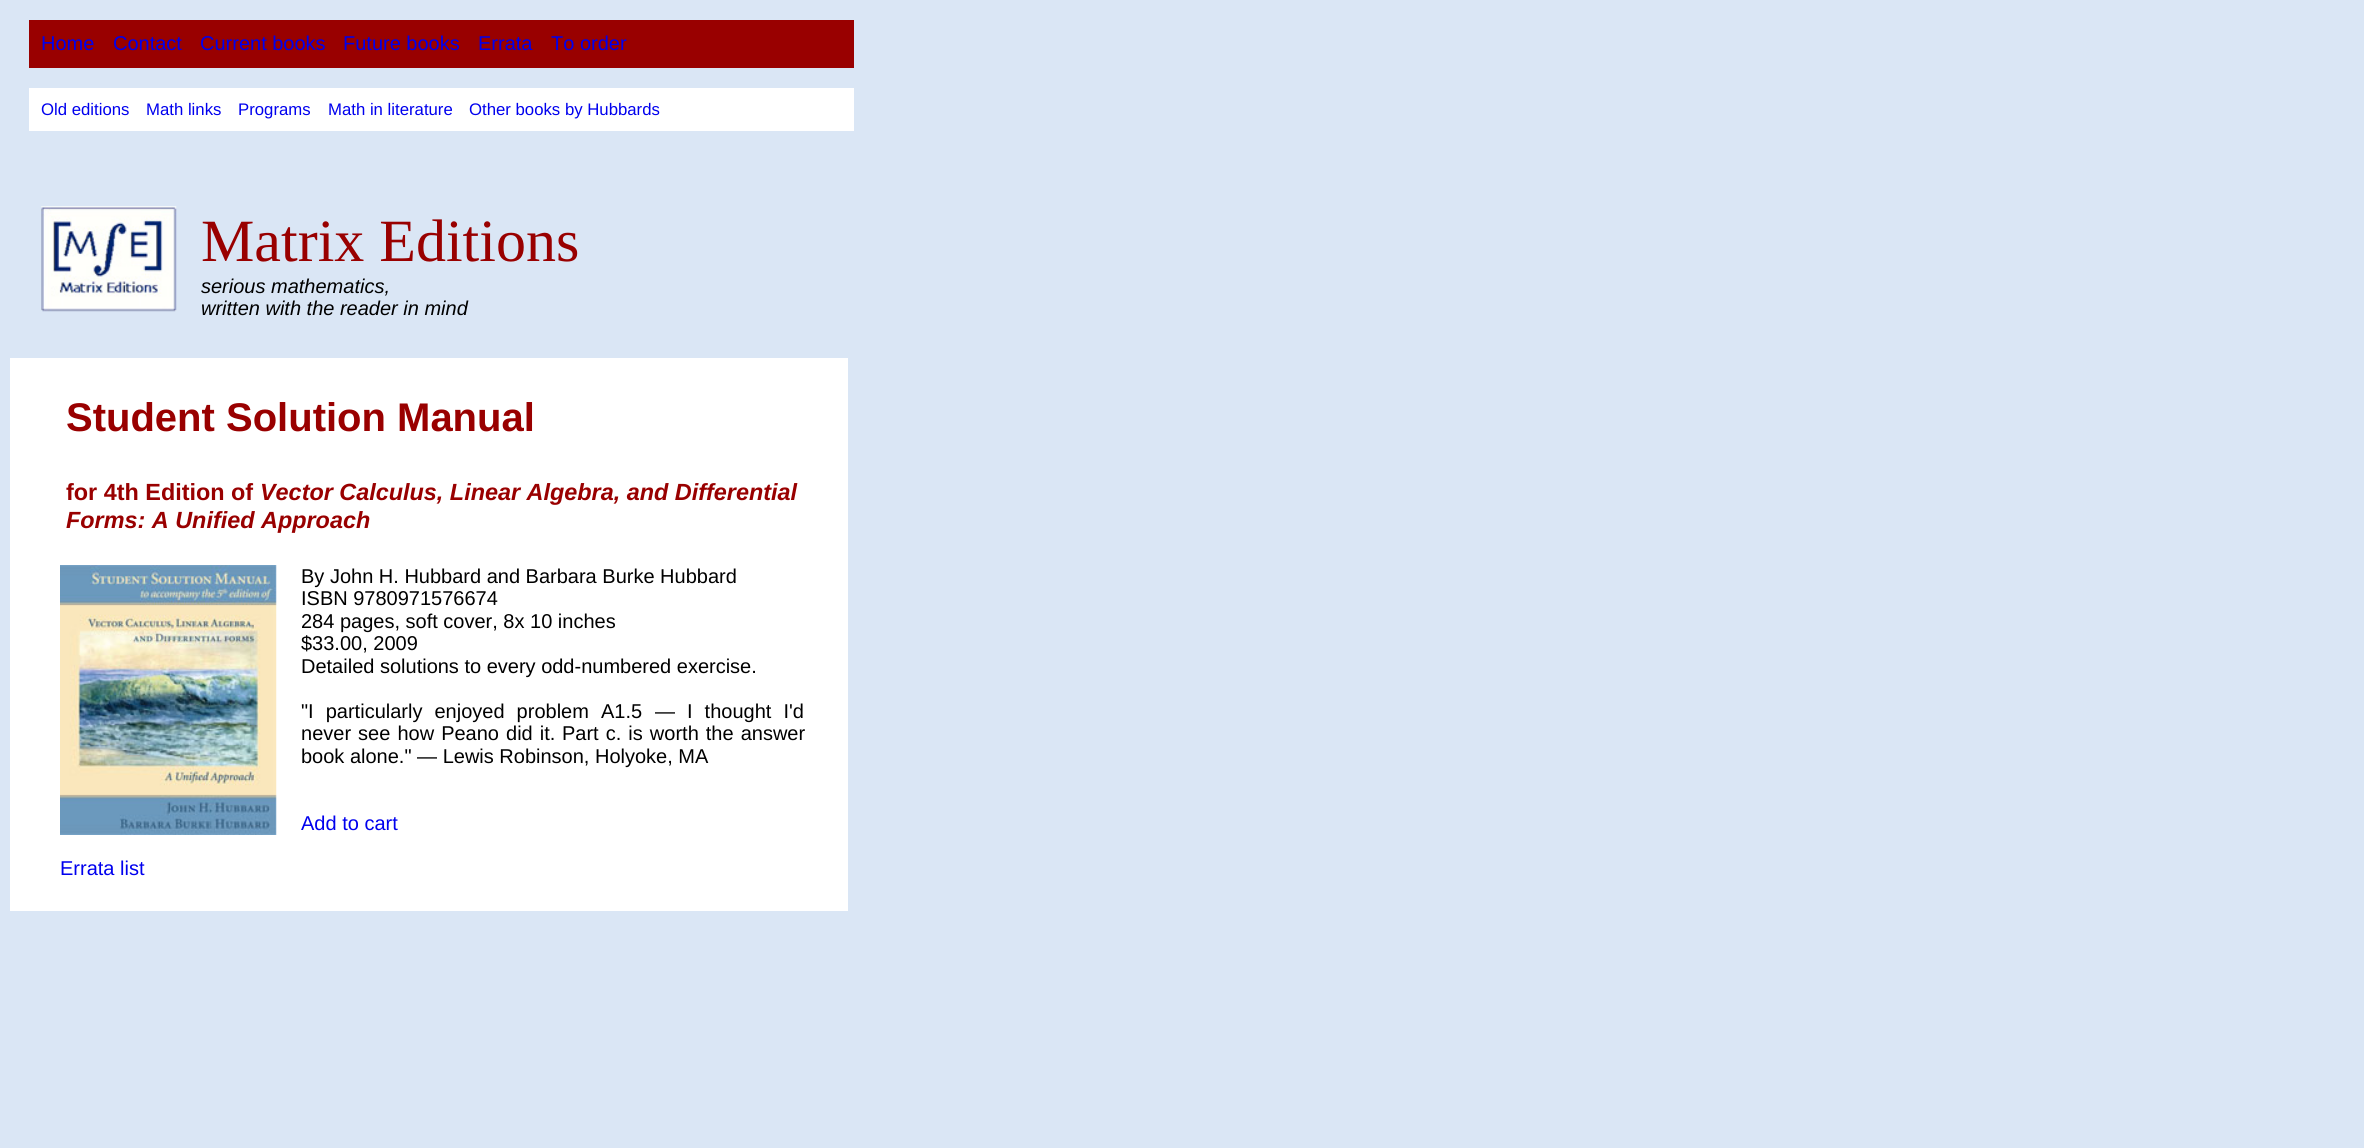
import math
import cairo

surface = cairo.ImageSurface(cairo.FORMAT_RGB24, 2364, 1148)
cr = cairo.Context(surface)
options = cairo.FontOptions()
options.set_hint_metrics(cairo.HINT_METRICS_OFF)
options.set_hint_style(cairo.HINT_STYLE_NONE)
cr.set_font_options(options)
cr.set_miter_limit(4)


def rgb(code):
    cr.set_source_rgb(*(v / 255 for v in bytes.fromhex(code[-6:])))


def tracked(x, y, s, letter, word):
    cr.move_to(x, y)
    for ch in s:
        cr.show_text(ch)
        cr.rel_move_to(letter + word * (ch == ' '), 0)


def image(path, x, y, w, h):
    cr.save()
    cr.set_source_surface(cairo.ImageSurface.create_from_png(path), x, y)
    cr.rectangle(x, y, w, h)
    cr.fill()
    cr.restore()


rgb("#dae6f5")
cr.paint()
rgb("#990000")
cr.rectangle(29, 20, 825, 48)
cr.fill()
rgb("#ffffff")
cr.rectangle(29, 88, 825, 43)
cr.fill()
image("img/1.png", 41, 206, 136, 106)
cr.rectangle(10, 358, 838, 553)
cr.fill()
image("img/2.png", 60, 565, 217, 270)
cr.select_font_face("Liberation Sans")
cr.set_font_size(20)
rgb("#0000ee")
for x, y, s in [
    (41, 50, "Home"),
    (113, 50, "Contact"),
    (200, 50, "Current books"),
    (343, 50, "Future books"),
    (478, 50, "Errata"),
    (551, 50, "To order"),
]:
    cr.move_to(x, y)
    cr.show_text(s)
cr.set_font_size(16.75)
for x, y, s in [
    (41, 115, "Old editions"),
    (146, 115, "Math links"),
    (238, 115, "Programs"),
    (328, 115, "Math in literature"),
    (469, 115, "Other books by Hubbards"),
]:
    cr.move_to(x, y)
    cr.show_text(s)
cr.select_font_face("Liberation Serif")
cr.set_font_size(60)
rgb("#990000")
cr.move_to(201, 261)
cr.show_text("Matrix Editions")
cr.select_font_face("Liberation Sans", cairo.FONT_SLANT_ITALIC)
cr.set_font_size(20)
rgb("#000000")
cr.move_to(201, 293)
cr.show_text("serious mathematics,")
cr.move_to(201, 315)
cr.show_text("written with the reader in mind")
cr.select_font_face("Liberation Sans", cairo.FONT_SLANT_NORMAL, cairo.FONT_WEIGHT_BOLD)
cr.set_font_size(40)
rgb("#990000")
cr.move_to(66, 431)
cr.show_text("Student Solution Manual")
cr.set_font_size(23.4)
cr.move_to(66, 500)
cr.show_text("for 4th Edition of")
cr.select_font_face("Liberation Sans", cairo.FONT_SLANT_ITALIC, cairo.FONT_WEIGHT_BOLD)
cr.move_to(260, 500)
cr.show_text("Vector Calculus, Linear Algebra, and Differential")
cr.move_to(66, 528)
cr.show_text("Forms: A Unified Approach")
cr.select_font_face("Liberation Sans")
cr.set_font_size(20)
rgb("#000000")
for x, y, s in [
    (301, 583, "By John H. Hubbard and Barbara Burke Hubbard"),
    (301, 605, "ISBN 9780971576674"),
    (301, 628, "284 pages, soft cover, 8x 10 inches"),
    (301, 650, "$33.00, 2009"),
    (301, 673, "Detailed solutions to every odd-numbered exercise."),
]:
    cr.move_to(x, y)
    cr.show_text(s)
tracked(301, 718, "\"I particularly enjoyed problem A1.5", 0, 6.5)
cr.move_to(655, 718)
cr.show_text("—")
tracked(687, 718, "I thought I'd", 0, 6.5)
tracked(301, 740, "never see how Peano did it.", 0, 1.5)
tracked(562, 740, "Part c. is worth the answer", 0, 1.5)
cr.move_to(301, 763)
cr.show_text("book alone.\" — Lewis Robinson, Holyoke, MA")
rgb("#0000ee")
cr.move_to(301, 830)
cr.show_text("Add to cart")
cr.move_to(60, 875)
cr.show_text("Errata list")
surface.write_to_png("page.png")
